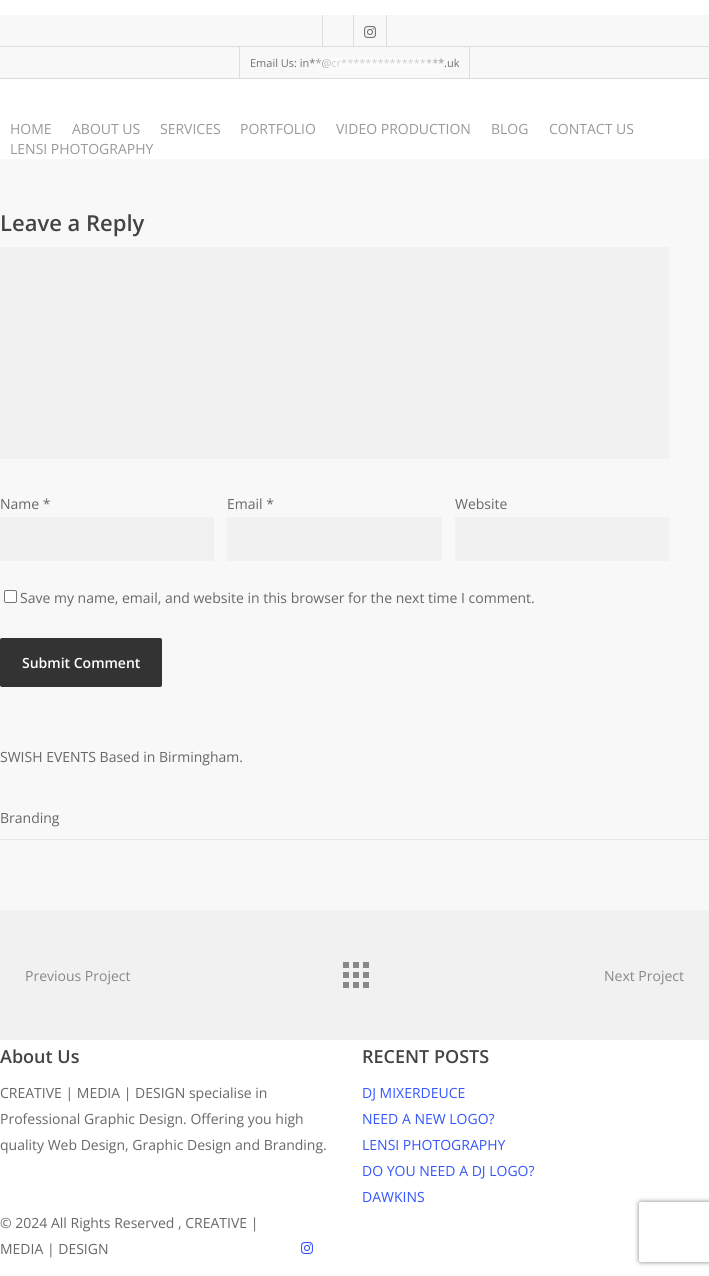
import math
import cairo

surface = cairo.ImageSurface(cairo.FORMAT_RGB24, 709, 1276)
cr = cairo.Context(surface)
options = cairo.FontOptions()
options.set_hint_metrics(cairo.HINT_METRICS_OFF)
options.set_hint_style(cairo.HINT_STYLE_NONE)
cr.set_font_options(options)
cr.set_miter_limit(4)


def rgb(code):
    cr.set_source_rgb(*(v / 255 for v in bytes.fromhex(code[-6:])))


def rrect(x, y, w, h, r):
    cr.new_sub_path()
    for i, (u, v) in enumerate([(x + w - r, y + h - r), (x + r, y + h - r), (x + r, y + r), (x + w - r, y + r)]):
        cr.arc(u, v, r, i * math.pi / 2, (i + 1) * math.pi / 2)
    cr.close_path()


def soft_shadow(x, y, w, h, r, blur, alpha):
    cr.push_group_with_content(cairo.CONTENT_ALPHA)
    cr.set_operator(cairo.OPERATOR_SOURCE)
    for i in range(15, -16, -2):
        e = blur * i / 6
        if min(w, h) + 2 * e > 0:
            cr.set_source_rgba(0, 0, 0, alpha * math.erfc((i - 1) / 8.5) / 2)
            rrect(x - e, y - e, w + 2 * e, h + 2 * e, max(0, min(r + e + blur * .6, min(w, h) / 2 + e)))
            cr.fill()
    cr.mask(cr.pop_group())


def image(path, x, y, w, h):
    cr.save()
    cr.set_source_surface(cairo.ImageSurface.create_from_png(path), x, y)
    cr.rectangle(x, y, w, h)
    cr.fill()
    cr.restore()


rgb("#ffffff")
cr.paint()
for x, y, w, h, color in [
    (0, 15, 709, 63, "#f8f8f8"),
    (0, 78, 709, 1, "#dddddd"),
    (322, 15, 1, 31, "#dddddd"),
    (386, 15, 1, 31, "#dddddd"),
    (353, 15, 1, 31, "#dddddd"),
]:
    rgb(color)
    cr.rectangle(x, y, w, h)
    cr.fill()
image("img/1.png", 364, 26, 12, 12)
for x, y, w, h, color in [
    (0, 46, 709, 1, "#dddddd"),
    (469, 47, 1, 31, "#dddddd"),
    (239, 47, 1, 31, "#dddddd"),
    (0, 159, 709, 751, "#f8f8f8"),
    (0, 247, 669, 212, "#f1f1f1"),
    (0, 517, 214, 44, "#f1f1f1"),
    (227, 517, 215, 44, "#f1f1f1"),
    (455, 517, 214, 44, "#f1f1f1"),
]:
    rgb(color)
    cr.rectangle(x, y, w, h)
    cr.fill()
rgb("#ffffff")
rrect(4.5, 590.5, 12, 12, 1.5)
cr.fill_preserve()
rgb("#767676")
cr.set_line_width(1)
cr.stroke()
rgb("#333333")
rrect(0, 638, 162, 49, 2)
cr.fill()
for x, y, w, h, color in [
    (0, 839, 709, 1, "#e6e6e6"),
    (0, 910, 709, 130, "#f1f1f1"),
    (363, 982, 6, 6, "#888888"),
    (353, 982, 6, 6, "#888888"),
    (343, 962, 6, 6, "#888888"),
    (353, 962, 6, 6, "#888888"),
    (363, 962, 6, 6, "#888888"),
    (363, 972, 6, 6, "#888888"),
    (343, 982, 6, 6, "#888888"),
    (343, 972, 6, 6, "#888888"),
    (353, 972, 6, 6, "#888888"),
]:
    rgb(color)
    cr.rectangle(x, y, w, h)
    cr.fill()
image("img/2.png", 301, 1242, 12, 12)
cr.save()
cr.set_fill_rule(cairo.FILL_RULE_EVEN_ODD)
cr.new_path()
cr.move_to(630, 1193)
cr.line_to(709, 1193)
cr.line_to(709, 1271)
cr.line_to(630, 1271)
cr.close_path()
cr.move_to(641, 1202)
cr.line_to(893, 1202)
cr.curve_to(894, 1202, 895, 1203, 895, 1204)
cr.line_to(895, 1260)
cr.curve_to(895, 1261, 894, 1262, 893, 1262)
cr.line_to(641, 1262)
cr.curve_to(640, 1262, 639, 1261, 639, 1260)
cr.line_to(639, 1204)
cr.curve_to(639, 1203, 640, 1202, 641, 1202)
cr.close_path()
cr.clip()
rgb("#808080")
soft_shadow(639, 1202, 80, 60, 2, 2.5, 1)
cr.restore()
cr.select_font_face("Open Sans")
cr.set_font_size(11)
rgb("#707070")
cr.move_to(250, 67)
cr.show_text("Email Us: in**@cr*****************.uk")
cr.set_source_rgba(1, 1, 1, 0.3)
rrect(316, 57, 127, 17, 8.5)
cr.fill()
cr.rectangle(324, 58, 111, 10)
cr.fill()
cr.rectangle(332, 58, 95, 10)
cr.fill()
cr.set_font_size(14)
rgb("#999999")
for x, y, s in [
    (10, 134, "HOME"),
    (72, 134, "ABOUT US"),
    (160, 134, "SERVICES"),
    (240, 134, "PORTFOLIO"),
    (336, 134, "VIDEO PRODUCTION"),
    (491, 134, "BLOG"),
    (549, 134, "CONTACT US"),
    (10, 154, "LENSI PHOTOGRAPHY"),
]:
    cr.move_to(x, y)
    cr.show_text(s)
cr.select_font_face("Open Sans SemiBold")
cr.set_font_size(22)
rgb("#444444")
cr.move_to(0, 231)
cr.show_text("Leave a Reply")
cr.select_font_face("Open Sans")
cr.set_font_size(14)
rgb("#676767")
for x, y, s in [
    (0, 509, "Name *"),
    (227, 509, "Email *"),
    (455, 509, "Website"),
    (20, 603, "Save my name, email, and website in this browser for the next time I comment."),
]:
    cr.move_to(x, y)
    cr.show_text(s)
cr.select_font_face("Open Sans SemiBold")
rgb("#ffffff")
cr.move_to(22, 668)
cr.show_text("Submit Comment")
cr.select_font_face("Open Sans")
rgb("#676767")
cr.move_to(0, 762)
cr.show_text("SWISH EVENTS Based in Birmingham.")
cr.move_to(0, 823)
cr.show_text("Branding")
rgb("#888888")
cr.move_to(25, 981)
cr.show_text("Previous Project")
cr.move_to(604, 981)
cr.show_text("Next Project")
cr.select_font_face("Open Sans SemiBold")
cr.set_font_size(18)
rgb("#444444")
cr.move_to(0, 1063)
cr.show_text("About Us")
cr.select_font_face("Open Sans")
cr.set_font_size(14)
rgb("#676767")
for x, y, s in [
    (0, 1098, "CREATIVE | MEDIA | DESIGN specialise in"),
    (0, 1124, "Professional Graphic Design. Offering you high"),
    (0, 1150, "quality Web Design, Graphic Design and Branding."),
]:
    cr.move_to(x, y)
    cr.show_text(s)
cr.select_font_face("Open Sans SemiBold")
cr.set_font_size(18)
rgb("#444444")
cr.move_to(362, 1063)
cr.show_text("RECENT POSTS")
cr.select_font_face("Open Sans")
cr.set_font_size(14)
rgb("#3555ff")
for x, y, s in [
    (362, 1098, "DJ MIXERDEUCE"),
    (362, 1124, "NEED A NEW LOGO?"),
    (362, 1150, "LENSI PHOTOGRAPHY"),
    (362, 1176, "DO YOU NEED A DJ LOGO?"),
    (362, 1202, "DAWKINS"),
]:
    cr.move_to(x, y)
    cr.show_text(s)
rgb("#676767")
cr.move_to(0, 1228)
cr.show_text("© 2024 All Rights Reserved , CREATIVE |")
cr.move_to(0, 1254)
cr.show_text("MEDIA | DESIGN")
surface.write_to_png("page.png")
